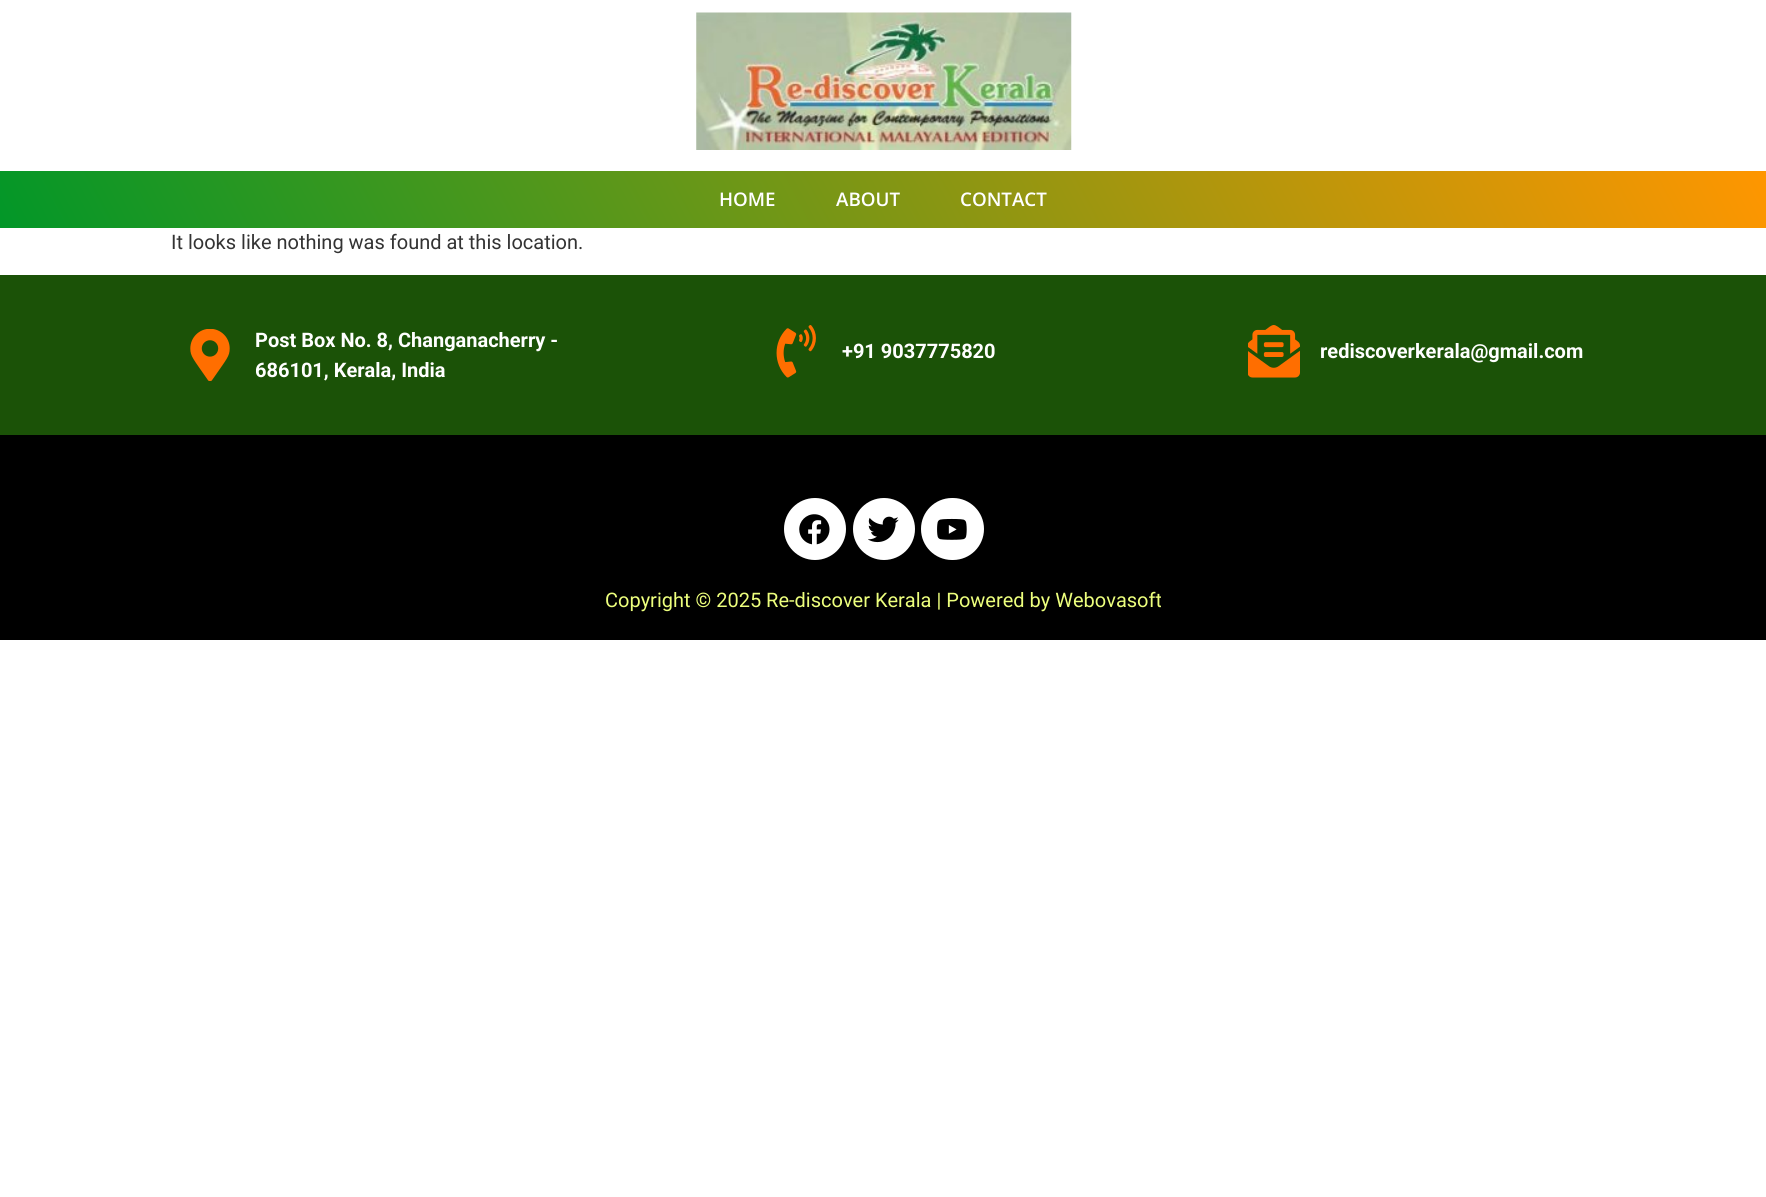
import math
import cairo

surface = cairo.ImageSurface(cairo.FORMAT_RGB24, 1766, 1197)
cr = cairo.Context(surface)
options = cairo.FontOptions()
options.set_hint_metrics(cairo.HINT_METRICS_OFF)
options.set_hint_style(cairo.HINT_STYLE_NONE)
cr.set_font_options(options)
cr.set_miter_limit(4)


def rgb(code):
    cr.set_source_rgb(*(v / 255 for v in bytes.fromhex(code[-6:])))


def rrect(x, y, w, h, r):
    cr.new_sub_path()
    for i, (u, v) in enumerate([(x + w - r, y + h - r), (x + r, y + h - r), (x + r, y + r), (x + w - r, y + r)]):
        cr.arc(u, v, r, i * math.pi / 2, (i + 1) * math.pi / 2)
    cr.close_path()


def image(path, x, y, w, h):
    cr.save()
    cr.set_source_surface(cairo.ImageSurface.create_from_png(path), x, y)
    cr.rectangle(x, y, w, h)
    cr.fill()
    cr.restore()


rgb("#ffffff")
cr.paint()
image("img/1.png", 696, 12, 376, 138)
gradient = cairo.LinearGradient(183, 572, 1583, -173)
gradient.add_color_stop_rgba(0, 0.008, 0.592, 0.157, 1)
gradient.add_color_stop_rgba(1, 1, 0.588, 0, 1)
cr.set_source(gradient)
cr.rectangle(0, 171, 1766, 57)
cr.fill()
rgb("#1b5207")
cr.rectangle(0, 275, 1766, 160)
cr.fill()
image("img/2.png", 190, 329, 40, 52)
image("img/3.png", 776, 325, 40, 53)
image("img/4.png", 1248, 325, 52, 53)
rgb("#000000")
cr.rectangle(0, 435, 1766, 205)
cr.fill()
rgb("#ffffff")
cr.arc(815, 529, 31, 0, 2 * math.pi)
cr.fill()
image("img/5.png", 799, 514, 31, 31)
cr.arc(884, 529, 31, 0, 2 * math.pi)
cr.fill()
image("img/6.png", 868, 516, 31, 27)
rrect(921, 498, 63, 62, 31)
cr.fill()
image("img/7.png", 937, 518, 30, 22)
cr.select_font_face("Open Sans SemiBold")
cr.set_font_size(18.75)
for x, y, s in [
    (719, 206, "HOME"),
    (836, 206, "ABOUT"),
    (960, 206, "CONTACT"),
]:
    cr.move_to(x, y)
    cr.show_text(s)
cr.select_font_face("Roboto")
cr.set_font_size(20)
rgb("#333333")
cr.move_to(171, 249)
cr.show_text("It looks like nothing was found at this location.")
cr.select_font_face("Roboto", cairo.FONT_SLANT_NORMAL, cairo.FONT_WEIGHT_BOLD)
rgb("#ffffff")
for x, y, s in [
    (255, 347, "Post Box No. 8, Changanacherry -"),
    (255, 377, "686101, Kerala, India"),
    (842, 358, "+91 9037775820"),
    (1320, 358, "rediscoverkerala@gmail.com"),
]:
    cr.move_to(x, y)
    cr.show_text(s)
cr.select_font_face("Roboto")
rgb("#edff7d")
cr.move_to(605, 607)
cr.show_text("Copyright © 2025 Re-discover Kerala | Powered by Webovasoft")
surface.write_to_png("page.png")
